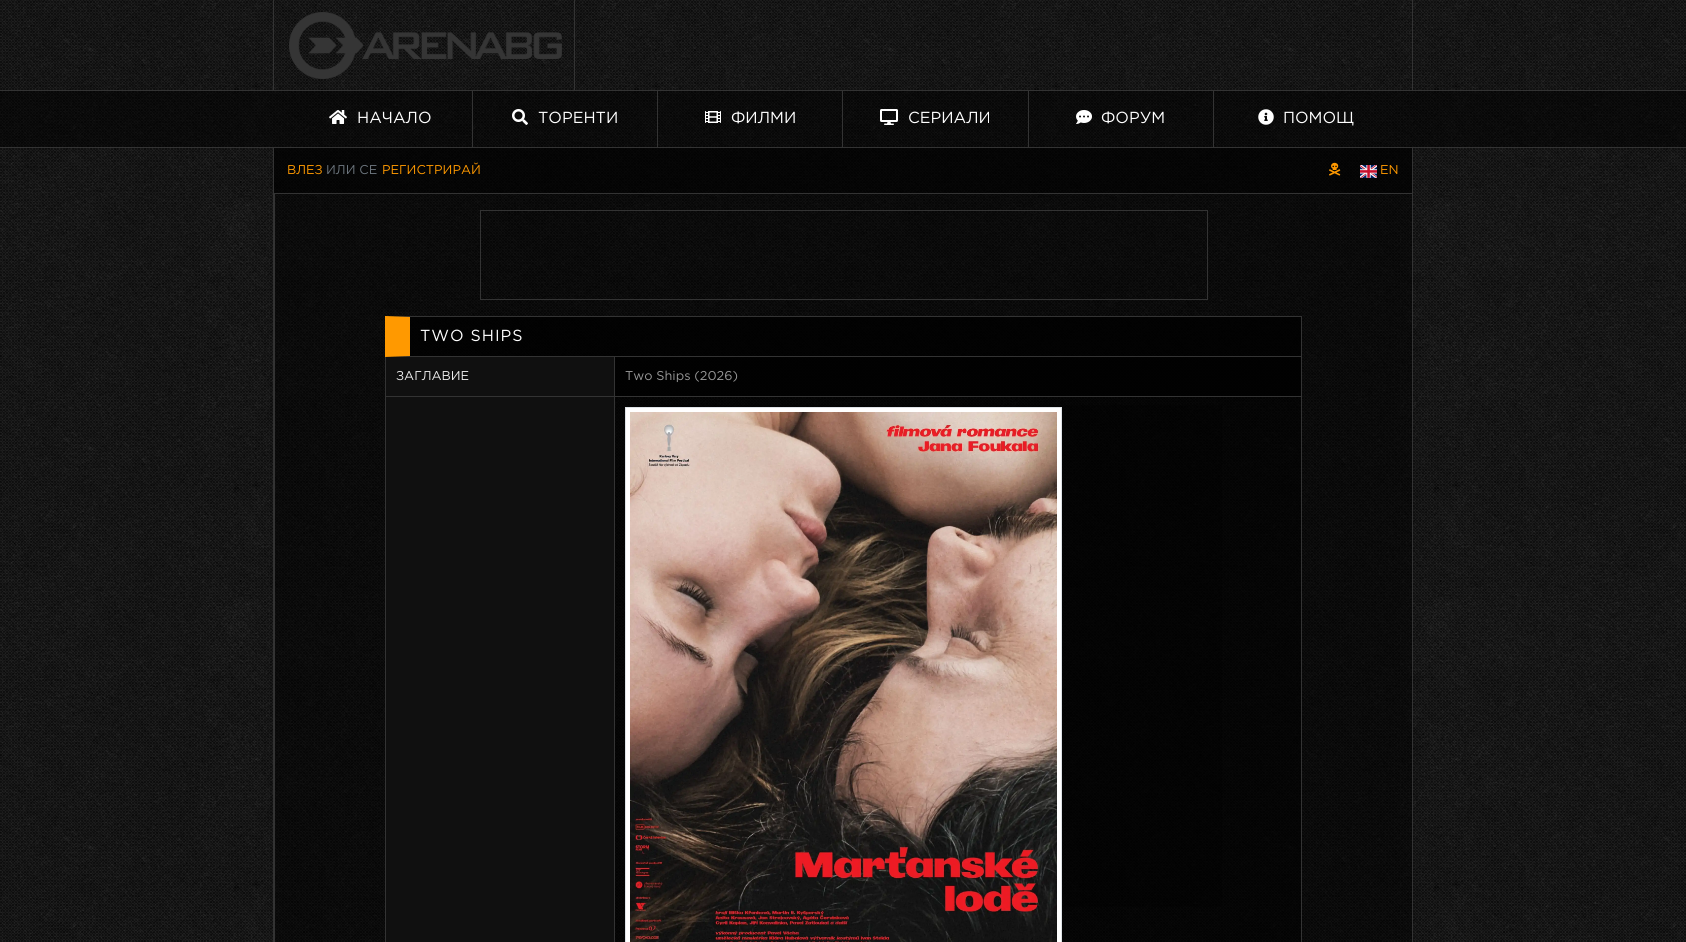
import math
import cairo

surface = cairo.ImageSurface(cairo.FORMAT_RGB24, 1686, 942)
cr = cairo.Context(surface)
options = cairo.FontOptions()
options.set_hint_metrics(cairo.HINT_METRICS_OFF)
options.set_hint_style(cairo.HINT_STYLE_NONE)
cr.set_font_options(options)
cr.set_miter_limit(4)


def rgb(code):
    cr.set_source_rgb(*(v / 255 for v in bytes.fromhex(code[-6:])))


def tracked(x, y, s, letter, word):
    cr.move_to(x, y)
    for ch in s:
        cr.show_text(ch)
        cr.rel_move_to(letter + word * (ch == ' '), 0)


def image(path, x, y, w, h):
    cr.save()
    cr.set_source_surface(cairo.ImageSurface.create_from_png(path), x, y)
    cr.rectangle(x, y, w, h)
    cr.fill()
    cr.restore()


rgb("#ffffff")
cr.paint()
image("img/1.png", 0, 0, 1686, 942)
rgb("#333333")
cr.rectangle(1412, 0, 1, 90)
cr.fill()
cr.rectangle(273, 0, 1, 90)
cr.fill()
image("img/2.png", 289, 12, 273, 67)
cr.rectangle(574, 0, 1, 90)
cr.fill()
cr.set_source_rgba(0, 0, 0, 0.5)
cr.rectangle(0, 91, 1686, 56)
cr.fill()
rgb("#333333")
cr.rectangle(0, 90, 1686, 1)
cr.rectangle(0, 147, 1686, 1)
cr.rectangle(472, 91, 1, 56)
cr.fill()
image("img/3.png", 329, 110, 18, 14)
cr.rectangle(657, 91, 1, 56)
cr.fill()
image("img/4.png", 512, 109, 16, 16)
cr.rectangle(842, 91, 1, 56)
cr.fill()
image("img/5.png", 705, 111, 16, 12)
cr.rectangle(1028, 91, 1, 56)
cr.fill()
image("img/6.png", 880, 109, 18, 16)
cr.rectangle(1213, 91, 1, 56)
cr.fill()
image("img/7.png", 1076, 110, 16, 14)
image("img/8.png", 1258, 109, 16, 16)
cr.set_source_rgba(0, 0, 0, 0.5)
cr.rectangle(274, 148, 1138, 794)
cr.fill()
rgb("#333333")
cr.rectangle(1412, 148, 1, 794)
cr.rectangle(273, 148, 1, 794)
cr.fill()
cr.set_source_rgba(0, 0, 0, 0.5)
cr.rectangle(274, 148, 948, 45)
cr.fill()
rgb("#333333")
cr.rectangle(274, 193, 1138, 1)
cr.fill()
cr.set_source_rgba(0, 0, 0, 0.5)
cr.rectangle(1222, 148, 190, 45)
cr.fill()
image("img/9.png", 1329, 162, 12, 14)
image("img/10.png", 1360, 165, 17, 13)
rgb("#333333")
cr.rectangle(274, 194, 1, 748)
cr.fill()
cr.rectangle(480.5, 210.5, 727, 89)
cr.set_line_width(1)
cr.stroke()
cr.set_source_rgba(0, 0, 0, 0.8)
cr.rectangle(410, 317, 891, 39)
cr.fill()
rgb("#333333")
cr.new_path()
cr.move_to(385, 316)
cr.line_to(1302, 316)
cr.line_to(1301, 317)
cr.line_to(410, 317)
cr.close_path()
cr.fill()
cr.rectangle(1301, 316, 1, 626)
cr.fill()
cr.new_path()
cr.move_to(1302, 357)
cr.line_to(385, 357)
cr.line_to(410, 356)
cr.line_to(1301, 356)
cr.close_path()
cr.fill()
rgb("#ff9900")
cr.new_path()
cr.move_to(385, 357)
cr.line_to(385, 316)
cr.line_to(410, 317)
cr.line_to(410, 356)
cr.close_path()
cr.fill()
cr.set_source_rgba(0, 0, 0, 0.5)
cr.rectangle(615, 357, 686, 585)
cr.fill()
rgb("#333333")
cr.rectangle(385, 357, 1, 585)
cr.fill()
cr.set_source_rgba(0, 0, 0, 0.75)
cr.rectangle(615, 357, 686, 39)
cr.fill()
rgb("#333333")
cr.rectangle(386, 396, 915, 1)
cr.fill()
rgb("#101010")
cr.rectangle(386, 357, 228, 39)
cr.fill()
rgb("#333333")
cr.rectangle(614, 357, 1, 39)
cr.fill()
cr.set_source_rgba(0, 0, 0, 0.25)
cr.rectangle(656, 405, 566, 502)
cr.fill()
rgb("#101010")
cr.rectangle(386, 397, 228, 545)
cr.fill()
rgb("#333333")
cr.rectangle(614, 397, 1, 545)
cr.fill()
rgb("#ffffff")
cr.rectangle(625.5, 407.5, 436, 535)
cr.fill_preserve()
rgb("#dee2e6")
cr.stroke()
image("img/11.png", 630, 412, 427, 530)
cr.select_font_face("Gotham")
cr.set_font_size(16)
rgb("#ffffff")
for x, y, s in [
    (357, 123, "НАЧАЛО"),
    (538, 123, "ТОРЕНТИ"),
    (731, 123, "ФИЛМИ"),
    (908, 123, "СЕРИАЛИ"),
    (1101, 123, "ФОРУМ"),
    (1283, 123, "ПОМОЩ"),
]:
    cr.move_to(x, y)
    cr.show_text(s)
cr.set_font_size(12.75)
rgb("#ff9900")
cr.move_to(287, 174)
cr.show_text("ВЛЕЗ")
rgb("#6c757d")
cr.move_to(326, 174)
cr.show_text("ИЛИ СЕ")
rgb("#ff9900")
cr.move_to(382, 174)
cr.show_text("РЕГИСТРИРАЙ")
cr.move_to(1380, 174)
cr.show_text("EN")
cr.set_font_size(16)
rgb("#ffffff")
tracked(420, 341, "TWO SHIPS", 1, 0)
cr.set_font_size(12.75)
rgb("#eeeeee")
cr.move_to(396, 380)
cr.show_text("ЗАГЛАВИЕ")
rgb("#999999")
cr.move_to(625, 380)
cr.show_text("Two Ships (2026)")
surface.write_to_png("page.png")
